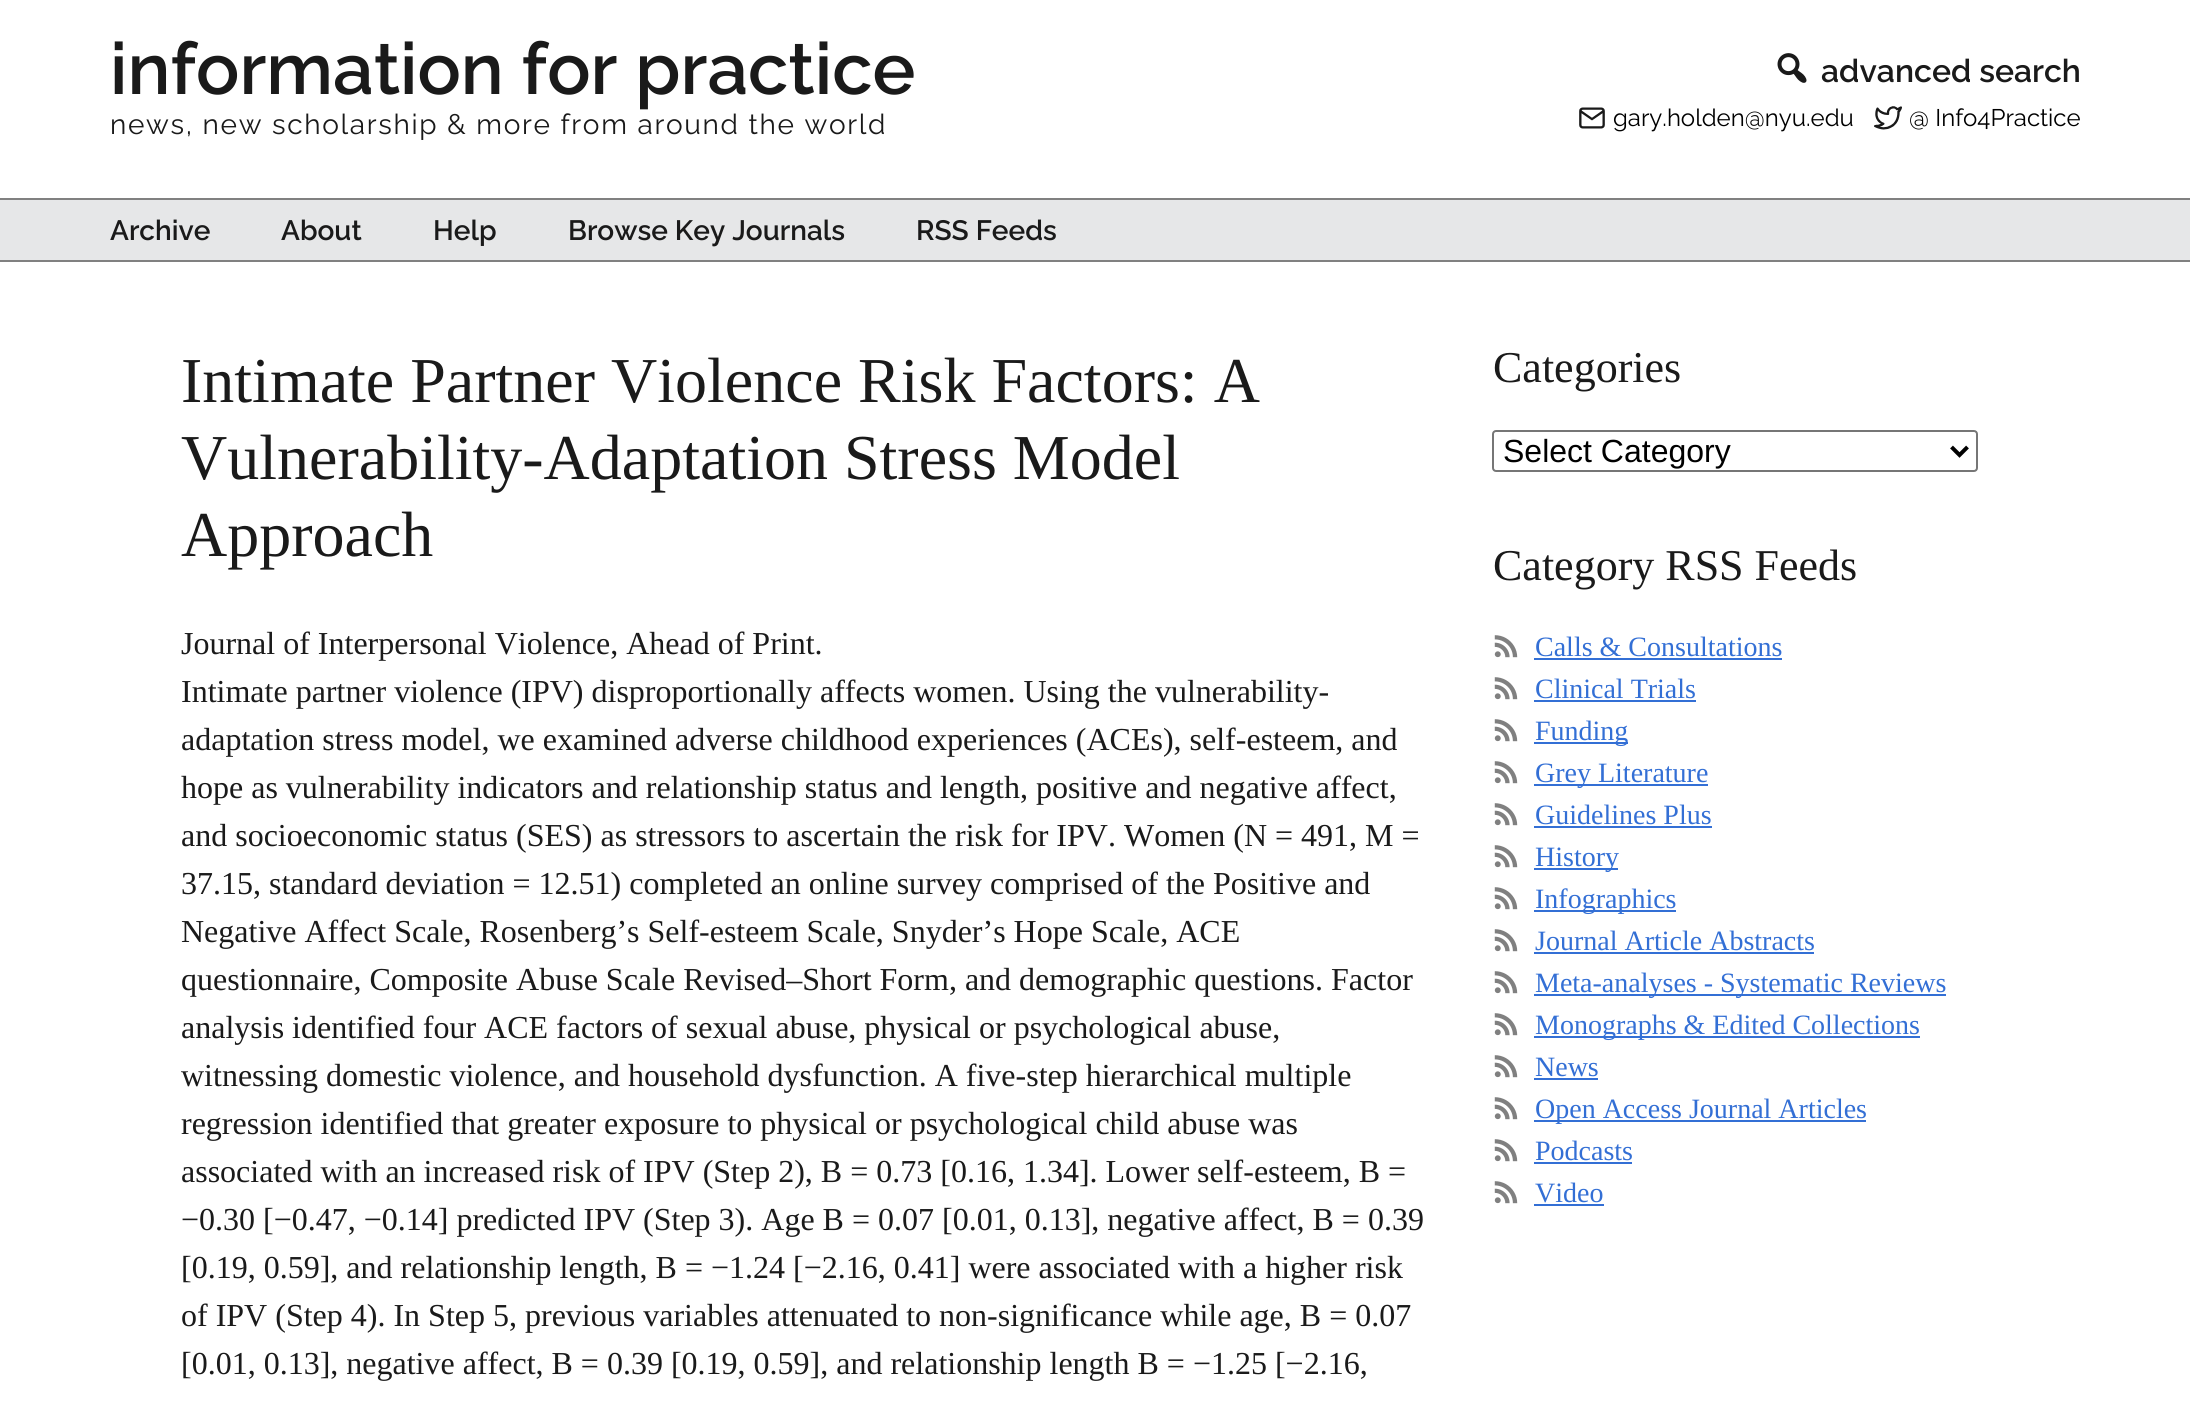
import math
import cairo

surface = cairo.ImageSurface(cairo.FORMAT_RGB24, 2190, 1401)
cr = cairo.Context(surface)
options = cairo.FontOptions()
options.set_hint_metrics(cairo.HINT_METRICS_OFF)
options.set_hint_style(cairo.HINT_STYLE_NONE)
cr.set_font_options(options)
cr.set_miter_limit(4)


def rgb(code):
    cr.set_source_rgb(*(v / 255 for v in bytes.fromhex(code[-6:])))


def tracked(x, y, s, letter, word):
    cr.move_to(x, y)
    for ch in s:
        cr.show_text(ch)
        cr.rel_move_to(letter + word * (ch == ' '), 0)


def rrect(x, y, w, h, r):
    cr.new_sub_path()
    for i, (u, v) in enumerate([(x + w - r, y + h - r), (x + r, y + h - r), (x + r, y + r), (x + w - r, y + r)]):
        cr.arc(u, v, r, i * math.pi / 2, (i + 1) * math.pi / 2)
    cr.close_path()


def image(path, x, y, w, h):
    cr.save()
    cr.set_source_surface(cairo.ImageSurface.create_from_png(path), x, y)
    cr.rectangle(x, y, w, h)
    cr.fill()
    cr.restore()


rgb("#ffffff")
cr.paint()
image("img/1.png", 1777, 53, 30, 30)
image("img/2.png", 1579, 107, 26, 22)
image("img/3.png", 1874, 106, 28, 24)
for x, y, w, h, color in [
    (0, 200, 2190, 60, "#e6e7e8"),
    (0, 198, 2190, 2, "#808080"),
    (0, 260, 2190, 2, "#808080"),
]:
    rgb(color)
    cr.rectangle(x, y, w, h)
    cr.fill()
rrect(1493, 431, 484, 40, 3)
rgb("#767676")
cr.stroke()
cr.new_path()
cr.move_to(1951.5, 447)
cr.line_to(1959.5, 455)
cr.line_to(1967.5, 447)
rgb("#000000")
cr.set_line_width(4)
cr.stroke()
image("img/4.png", 1494, 635, 24, 23)
rgb("#336fd5")
cr.rectangle(1534, 658, 248, 2)
cr.fill()
image("img/4.png", 1494, 677, 24, 23)
cr.rectangle(1534, 700, 162, 2)
cr.fill()
image("img/4.png", 1494, 719, 24, 23)
cr.rectangle(1534, 742, 94, 2)
cr.fill()
image("img/4.png", 1494, 761, 24, 23)
cr.rectangle(1534, 784, 174, 2)
cr.fill()
image("img/4.png", 1494, 803, 24, 23)
cr.rectangle(1534, 826, 178, 2)
cr.fill()
image("img/4.png", 1494, 845, 24, 23)
cr.rectangle(1534, 868, 84, 2)
cr.fill()
image("img/4.png", 1494, 887, 24, 23)
cr.rectangle(1534, 910, 142, 2)
cr.fill()
image("img/4.png", 1494, 929, 24, 23)
cr.rectangle(1534, 952, 280, 2)
cr.fill()
image("img/4.png", 1494, 971, 24, 23)
cr.rectangle(1534, 994, 412, 2)
cr.fill()
image("img/4.png", 1494, 1013, 24, 23)
cr.rectangle(1534, 1036, 386, 2)
cr.fill()
image("img/4.png", 1494, 1055, 24, 23)
cr.rectangle(1534, 1078, 64, 2)
cr.fill()
image("img/4.png", 1494, 1097, 24, 23)
cr.rectangle(1534, 1120, 332, 2)
cr.fill()
image("img/4.png", 1494, 1139, 24, 23)
cr.rectangle(1534, 1162, 98, 2)
cr.fill()
image("img/4.png", 1494, 1181, 24, 23)
cr.rectangle(1534, 1204, 70, 2)
cr.fill()
cr.select_font_face("Raleway SemiBold")
cr.set_font_size(72)
rgb("#1a1a1a")
cr.move_to(110, 94)
cr.show_text("information for practice")
cr.select_font_face("Raleway")
cr.set_font_size(28)
tracked(110, 134, "news, new scholarship & more from around the world", 1.68, 0)
cr.select_font_face("Raleway SemiBold")
cr.set_font_size(32)
cr.move_to(1821, 82)
cr.show_text("advanced search")
cr.select_font_face("Raleway")
cr.set_font_size(24)
rgb("#000000")
cr.move_to(1613, 126)
cr.show_text("gary.holden@nyu.edu")
cr.move_to(1909, 126)
cr.show_text("@ Info4Practice")
cr.select_font_face("Raleway SemiBold")
cr.set_font_size(28)
rgb("#1a1a1a")
for x, y, s in [
    (110, 240, "Archive"),
    (281, 240, "About"),
    (433, 240, "Help"),
    (568, 240, "Browse Key Journals"),
    (916, 240, "RSS Feeds"),
]:
    cr.move_to(x, y)
    cr.show_text(s)
cr.select_font_face("Liberation Serif")
cr.set_font_size(64)
for x, y, s in [
    (181, 402, "Intimate Partner Violence Risk Factors: A"),
    (181, 479, "Vulnerability-Adaptation Stress Model"),
    (181, 556, "Approach"),
]:
    cr.move_to(x, y)
    cr.show_text(s)
cr.set_font_size(32)
for x, y, s in [
    (181, 654, "Journal of Interpersonal Violence, Ahead of Print."),
    (181, 702, "Intimate partner violence (IPV) disproportionally affects women. Using the vulnerability-"),
    (181, 750, "adaptation stress model, we examined adverse childhood experiences (ACEs), self-esteem, and"),
    (181, 798, "hope as vulnerability indicators and relationship status and length, positive and negative affect,"),
    (181, 846, "and socioeconomic status (SES) as stressors to ascertain the risk for IPV. Women (N = 491, M ="),
    (181, 894, "37.15, standard deviation = 12.51) completed an online survey comprised of the Positive and"),
    (181, 942, "Negative Affect Scale, Rosenberg’s Self-esteem Scale, Snyder’s Hope Scale, ACE"),
    (181, 990, "questionnaire, Composite Abuse Scale Revised–Short Form, and demographic questions. Factor"),
    (181, 1038, "analysis identified four ACE factors of sexual abuse, physical or psychological abuse,"),
    (181, 1086, "witnessing domestic violence, and household dysfunction. A five-step hierarchical multiple"),
    (181, 1134, "regression identified that greater exposure to physical or psychological child abuse was"),
    (181, 1182, "associated with an increased risk of IPV (Step 2), B = 0.73 [0.16, 1.34]. Lower self-esteem, B ="),
    (181, 1230, "−0.30 [−0.47, −0.14] predicted IPV (Step 3). Age B = 0.07 [0.01, 0.13], negative affect, B = 0.39"),
    (181, 1278, "[0.19, 0.59], and relationship length, B = −1.24 [−2.16, 0.41] were associated with a higher risk"),
    (181, 1326, "of IPV (Step 4). In Step 5, previous variables attenuated to non-significance while age, B = 0.07"),
    (181, 1374, "[0.01, 0.13], negative affect, B = 0.39 [0.19, 0.59], and relationship length B = −1.25 [−2.16,"),
]:
    cr.move_to(x, y)
    cr.show_text(s)
cr.set_font_size(44)
cr.move_to(1493, 382)
cr.show_text("Categories")
cr.select_font_face("Liberation Sans")
cr.set_font_size(32)
rgb("#000000")
cr.move_to(1503, 462)
cr.show_text("Select Category")
cr.select_font_face("Liberation Serif")
cr.set_font_size(44)
rgb("#1a1a1a")
cr.move_to(1493, 580)
cr.show_text("Category RSS Feeds")
cr.set_font_size(28)
rgb("#336fd5")
for x, y, s in [
    (1535, 656, "Calls & Consultations"),
    (1535, 698, "Clinical Trials"),
    (1535, 740, "Funding"),
    (1535, 782, "Grey Literature"),
    (1535, 824, "Guidelines Plus"),
    (1535, 866, "History"),
    (1535, 908, "Infographics"),
    (1535, 950, "Journal Article Abstracts"),
    (1535, 992, "Meta-analyses - Systematic Reviews"),
    (1535, 1034, "Monographs & Edited Collections"),
    (1535, 1076, "News"),
    (1535, 1118, "Open Access Journal Articles"),
    (1535, 1160, "Podcasts"),
    (1535, 1202, "Video"),
]:
    cr.move_to(x, y)
    cr.show_text(s)
surface.write_to_png("page.png")
